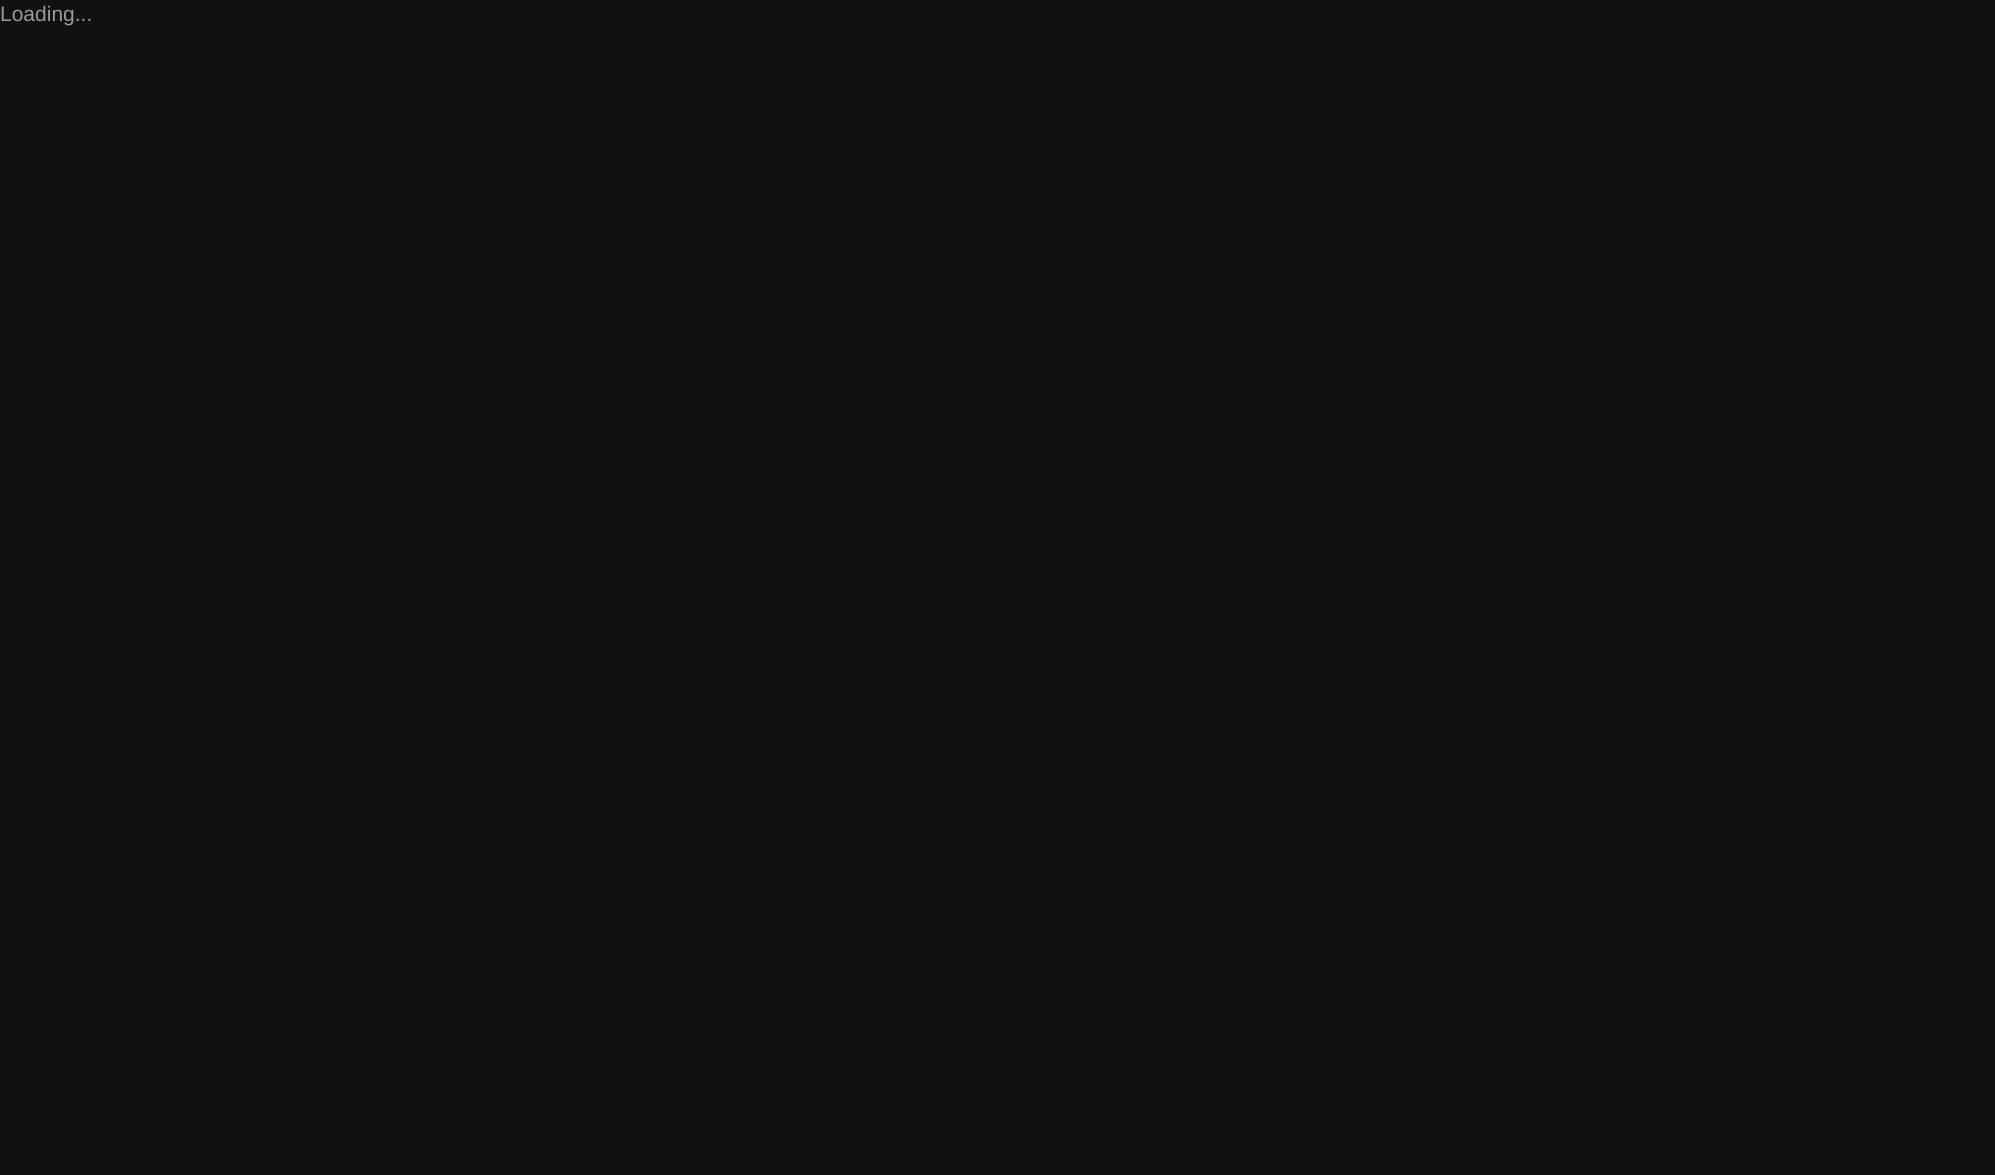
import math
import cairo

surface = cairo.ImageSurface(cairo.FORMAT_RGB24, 1995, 1175)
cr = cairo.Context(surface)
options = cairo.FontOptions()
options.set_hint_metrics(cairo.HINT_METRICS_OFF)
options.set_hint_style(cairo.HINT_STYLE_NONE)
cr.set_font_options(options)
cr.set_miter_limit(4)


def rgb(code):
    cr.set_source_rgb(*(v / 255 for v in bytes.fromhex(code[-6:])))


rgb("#111111")
cr.paint()
cr.select_font_face("Liberation Sans")
cr.set_font_size(21)
rgb("#999999")
cr.move_to(0, 21)
cr.show_text("Loading...")
surface.write_to_png("page.png")
